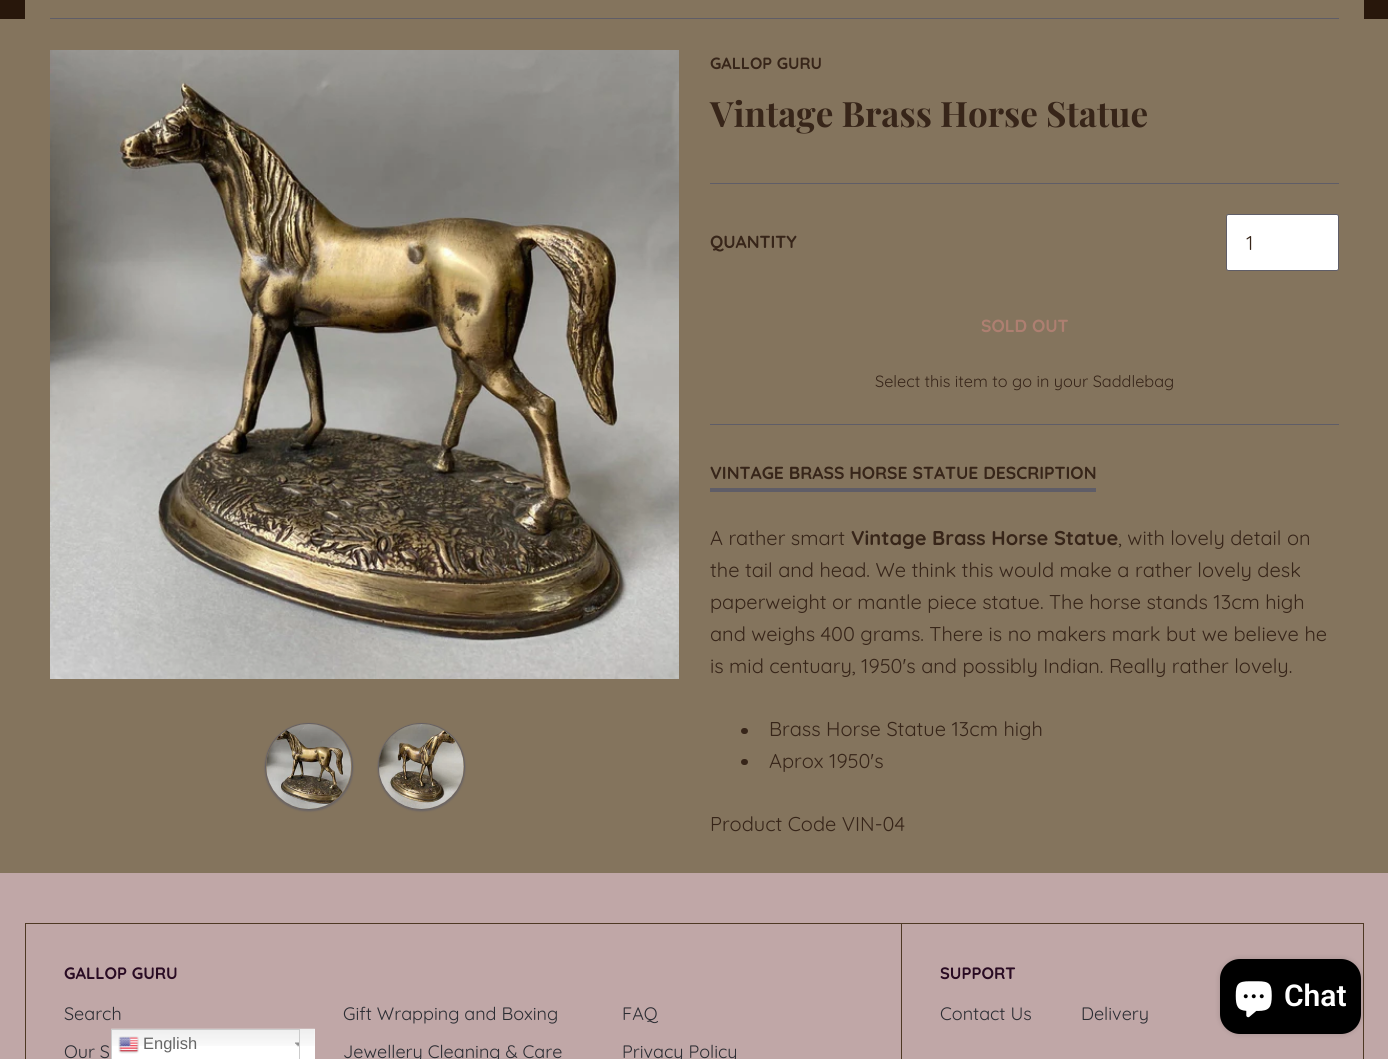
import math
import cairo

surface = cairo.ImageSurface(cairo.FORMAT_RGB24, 1388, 1059)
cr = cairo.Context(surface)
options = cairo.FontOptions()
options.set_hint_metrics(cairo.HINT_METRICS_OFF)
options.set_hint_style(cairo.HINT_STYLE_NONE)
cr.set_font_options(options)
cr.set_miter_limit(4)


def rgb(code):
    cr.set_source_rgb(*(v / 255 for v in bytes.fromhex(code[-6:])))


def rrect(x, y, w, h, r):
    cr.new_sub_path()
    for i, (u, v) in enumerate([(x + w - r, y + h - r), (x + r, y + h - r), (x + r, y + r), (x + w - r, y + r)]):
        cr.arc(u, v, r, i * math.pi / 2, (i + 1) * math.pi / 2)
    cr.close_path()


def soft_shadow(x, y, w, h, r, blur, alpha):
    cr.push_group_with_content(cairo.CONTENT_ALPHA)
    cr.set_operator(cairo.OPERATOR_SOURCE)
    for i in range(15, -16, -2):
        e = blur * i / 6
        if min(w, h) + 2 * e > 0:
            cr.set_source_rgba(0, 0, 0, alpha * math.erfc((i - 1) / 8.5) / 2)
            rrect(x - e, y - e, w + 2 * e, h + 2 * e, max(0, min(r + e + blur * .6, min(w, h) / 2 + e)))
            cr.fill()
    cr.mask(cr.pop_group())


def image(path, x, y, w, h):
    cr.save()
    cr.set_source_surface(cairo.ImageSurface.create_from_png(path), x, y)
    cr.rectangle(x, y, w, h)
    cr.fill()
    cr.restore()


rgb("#84745d")
cr.paint()
for x, y, w, h, color in [
    (0, 0, 1388, 19, "#28170b"),
    (25, 0, 1339, 19, "#84745d"),
    (50, 18, 1289, 1, "#5f5d67"),
]:
    rgb(color)
    cr.rectangle(x, y, w, h)
    cr.fill()
image("img/1.png", 50, 50, 629, 629)
cr.save()
cr.set_fill_rule(cairo.FILL_RULE_EVEN_ODD)
cr.new_path()
cr.move_to(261, 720)
cr.line_to(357, 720)
cr.line_to(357, 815)
cr.line_to(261, 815)
cr.close_path()
cr.move_to(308.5, 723)
cr.line_to(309.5, 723)
cr.curve_to(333.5, 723, 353, 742.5, 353, 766.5)
cr.curve_to(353, 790.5, 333.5, 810, 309.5, 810)
cr.line_to(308.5, 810)
cr.curve_to(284.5, 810, 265, 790.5, 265, 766.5)
cr.curve_to(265, 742.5, 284.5, 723, 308.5, 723)
cr.close_path()
cr.clip()
rgb("#5f5d67")
soft_shadow(265, 724, 88, 87, 43.5, 1, 0.8)
cr.restore()
rrect(265.5, 723.5, 87, 86, 43)
cr.set_source_rgba(0.373, 0.365, 0.404, 0.8)
cr.set_line_width(1)
cr.stroke()
image("img/2.png", 266, 724, 86, 85)
cr.save()
cr.set_fill_rule(cairo.FILL_RULE_EVEN_ODD)
cr.new_path()
cr.move_to(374, 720)
cr.line_to(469, 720)
cr.line_to(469, 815)
cr.line_to(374, 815)
cr.close_path()
cr.move_to(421.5, 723)
cr.curve_to(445.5, 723, 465, 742.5, 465, 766.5)
cr.curve_to(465, 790.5, 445.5, 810, 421.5, 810)
cr.curve_to(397.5, 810, 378, 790.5, 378, 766.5)
cr.curve_to(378, 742.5, 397.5, 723, 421.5, 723)
cr.close_path()
cr.clip()
rgb("#5f5d67")
soft_shadow(378, 724, 87, 87, 43.5, 1, 0.8)
cr.restore()
cr.arc(421.5, 766.5, 43, 0, 2 * math.pi)
cr.stroke()
image("img/3.png", 379, 724, 85, 85)
rgb("#5f5d67")
cr.rectangle(710, 183, 629, 1)
cr.fill()
rgb("#ffffff")
rrect(1226.5, 214.5, 112, 56, 2)
cr.fill_preserve()
rgb("#5f5d67")
cr.stroke()
cr.rectangle(710, 424, 629, 1)
cr.fill()
cr.rectangle(710, 488, 386, 4)
cr.fill()
rgb("#372519")
rrect(741, 728, 7, 6, 3)
cr.fill()
rrect(741, 759, 7, 6, 3)
cr.fill()
rgb("#c0a7a7")
cr.rectangle(0, 873, 1388, 186)
cr.fill()
cr.rectangle(25.5, 923.5, 1338, 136)
rgb("#4e3924")
cr.stroke()
cr.rectangle(901, 924, 1, 135)
cr.fill()
rgb("#000000")
soft_shadow(1220, 959, 141, 75, 20, 3, 0.15)
rgb("#000000")
rrect(1220, 959, 141, 75, 20)
cr.fill()
image("img/4.png", 1235, 981, 37, 37)
rgb("#ffffff")
cr.rectangle(112, 1029, 203, 30)
cr.fill()
image("img/5.png", 111, 1028, 204, 18)
image("img/6.png", 295, 1042, 4, 5)
cr.rectangle(111.5, 1029.5, 188, 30)
rgb("#cccccc")
cr.stroke()
image("img/7.png", 118, 1036, 21, 18)
cr.select_font_face("Quicksand", cairo.FONT_SLANT_NORMAL, cairo.FONT_WEIGHT_BOLD)
cr.set_font_size(16.25)
rgb("#372519")
cr.move_to(710, 69)
cr.show_text("GALLOP GURU")
cr.select_font_face("Playfair Display", cairo.FONT_SLANT_NORMAL, cairo.FONT_WEIGHT_BOLD)
cr.set_font_size(35)
cr.move_to(710, 127)
cr.show_text("Vintage Brass Horse Statue")
cr.select_font_face("Quicksand", cairo.FONT_SLANT_NORMAL, cairo.FONT_WEIGHT_BOLD)
cr.set_font_size(17.5)
cr.move_to(710, 248)
cr.show_text("QUANTITY")
cr.select_font_face("Quicksand")
cr.set_font_size(20)
cr.move_to(1246, 250)
cr.show_text("1")
cr.select_font_face("Quicksand", cairo.FONT_SLANT_NORMAL, cairo.FONT_WEIGHT_BOLD)
cr.set_font_size(17.5)
rgb("#ae7f71")
cr.move_to(981, 332)
cr.show_text("SOLD OUT")
cr.select_font_face("Quicksand")
cr.set_font_size(16.25)
rgb("#372519")
cr.move_to(875, 387)
cr.show_text("Select this item to go in your Saddlebag")
cr.select_font_face("Quicksand", cairo.FONT_SLANT_NORMAL, cairo.FONT_WEIGHT_BOLD)
cr.set_font_size(17.5)
cr.move_to(710, 479)
cr.show_text("VINTAGE BRASS HORSE STATUE DESCRIPTION")
cr.select_font_face("Quicksand")
cr.set_font_size(20)
cr.move_to(710, 545)
cr.show_text("A rather smart")
cr.select_font_face("Quicksand", cairo.FONT_SLANT_NORMAL, cairo.FONT_WEIGHT_BOLD)
cr.move_to(851, 545)
cr.show_text("Vintage Brass Horse Statue")
cr.select_font_face("Quicksand")
for x, y, s in [
    (1118, 545, ", with lovely detail on"),
    (710, 577, "the tail and head. We think this would make a rather lovely desk"),
    (710, 609, "paperweight or mantle piece statue. The horse stands 13cm high"),
    (710, 641, "and weighs 400 grams. There is no makers mark but we believe he"),
    (710, 673, "is mid centuary, 1950's and possibly Indian. Really rather lovely."),
    (769, 736, "Brass Horse Statue 13cm high"),
    (769, 768, "Aprox 1950's"),
    (710, 831, "Product Code VIN-04"),
]:
    cr.move_to(x, y)
    cr.show_text(s)
cr.select_font_face("Quicksand", cairo.FONT_SLANT_NORMAL, cairo.FONT_WEIGHT_BOLD)
cr.set_font_size(16.5)
rgb("#290b23")
cr.move_to(64, 979)
cr.show_text("GALLOP GURU")
cr.select_font_face("Quicksand")
cr.set_font_size(18)
rgb("#2c2d33")
for x, y, s in [
    (64, 1020, "Search"),
    (343, 1020, "Gift Wrapping and Boxing"),
    (622, 1020, "FAQ"),
    (64, 1058, "Our S"),
    (343, 1058, "Jewellery Cleaning & Care"),
    (622, 1058, "Privacy Policy"),
]:
    cr.move_to(x, y)
    cr.show_text(s)
cr.select_font_face("Quicksand", cairo.FONT_SLANT_NORMAL, cairo.FONT_WEIGHT_BOLD)
cr.set_font_size(16.5)
rgb("#290b23")
cr.move_to(940, 979)
cr.show_text("SUPPORT")
cr.select_font_face("Quicksand")
cr.set_font_size(18)
rgb("#2c2d33")
cr.move_to(940, 1020)
cr.show_text("Contact Us")
cr.move_to(1081, 1020)
cr.show_text("Delivery")
cr.select_font_face("Roboto SemiBold")
cr.set_font_size(30)
rgb("#ffffff")
cr.move_to(1284, 1006)
cr.show_text("Chat")
cr.select_font_face("Liberation Sans")
cr.set_font_size(16.5)
rgb("#666666")
cr.move_to(143, 1049)
cr.show_text("English")
surface.write_to_png("page.png")
